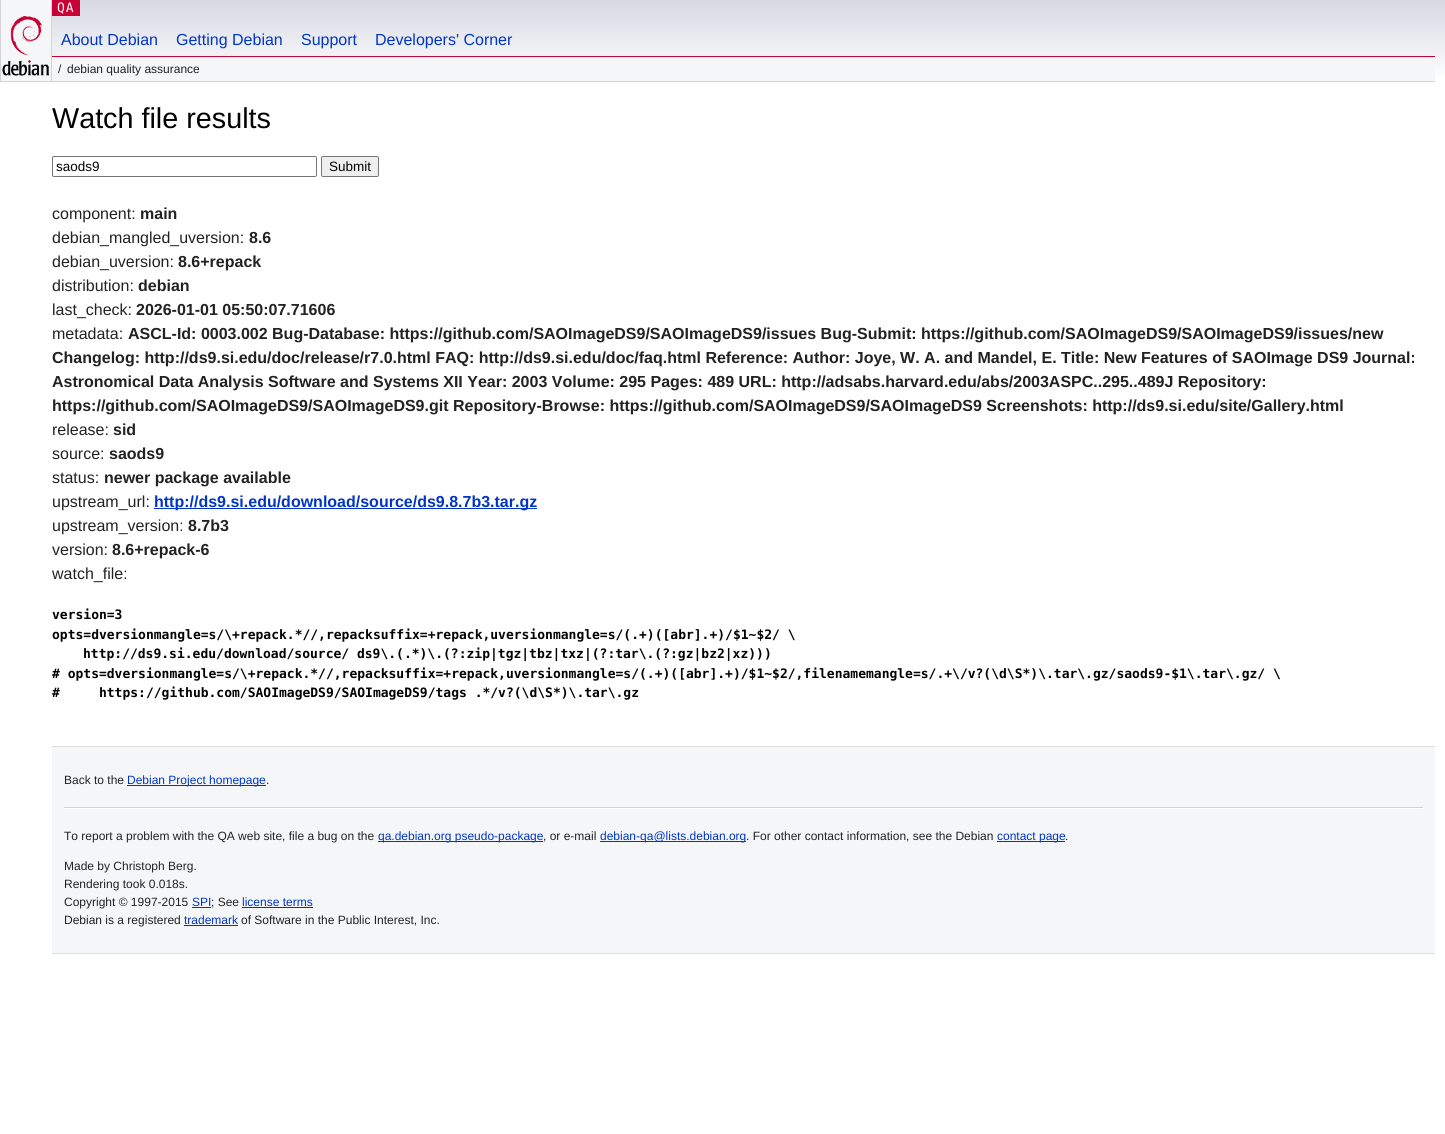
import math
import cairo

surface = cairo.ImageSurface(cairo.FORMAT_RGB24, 1445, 1134)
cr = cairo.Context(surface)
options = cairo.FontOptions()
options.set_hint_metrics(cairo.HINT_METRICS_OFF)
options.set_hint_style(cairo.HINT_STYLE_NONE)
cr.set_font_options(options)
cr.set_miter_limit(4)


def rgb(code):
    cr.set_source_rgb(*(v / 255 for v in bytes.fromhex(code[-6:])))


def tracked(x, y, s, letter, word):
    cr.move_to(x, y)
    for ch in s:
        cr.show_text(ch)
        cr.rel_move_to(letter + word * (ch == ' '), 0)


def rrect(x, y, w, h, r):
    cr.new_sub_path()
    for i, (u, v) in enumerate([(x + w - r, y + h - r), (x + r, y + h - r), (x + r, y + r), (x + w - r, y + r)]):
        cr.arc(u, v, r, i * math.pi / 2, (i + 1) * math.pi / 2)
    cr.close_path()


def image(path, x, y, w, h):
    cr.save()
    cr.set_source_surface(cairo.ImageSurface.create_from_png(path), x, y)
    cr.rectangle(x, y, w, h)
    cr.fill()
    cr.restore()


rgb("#ffffff")
cr.paint()
gradient = cairo.LinearGradient(723, 0, 723, 82)
gradient.add_color_stop_rgba(0, 0.843, 0.851, 0.886, 1)
gradient.add_color_stop_rgba(1, 1, 1, 1, 1)
cr.set_source(gradient)
cr.rectangle(52, 0, 1393, 77)
cr.fill()
for x, y, w, h, color in [
    (1, 0, 50, 81, "#f5f6f7"),
    (51, 0, 1, 82, "#d2d3d7"),
    (0, 81, 52, 1, "#d2d3d7"),
    (0, 0, 1, 82, "#d2d3d7"),
]:
    rgb(color)
    cr.rectangle(x, y, w, h)
    cr.fill()
image("img/1.png", 2, 16, 47, 60)
for x, y, w, h, color in [
    (52, 0, 28, 16, "#c70036"),
    (52, 56, 1383, 1, "#c70036"),
    (52, 66, 1383, 15, "#f5f6f7"),
    (52, 81, 1383, 1, "#d2d3d7"),
]:
    rgb(color)
    cr.rectangle(x, y, w, h)
    cr.fill()
rrect(52.5, 156.5, 264, 20, 1.5)
rgb("#767676")
cr.set_line_width(1)
cr.stroke()
rgb("#efefef")
rrect(321.5, 156.5, 57, 20, 1.5)
cr.fill_preserve()
rgb("#767676")
cr.stroke()
for x, y, w, h, color in [
    (154, 508, 383, 1, "#0035c7"),
    (52, 747, 1383, 206, "#f5f6f7"),
    (52, 746, 1383, 1, "#dfdfe0"),
    (52, 953, 1383, 1, "#dfdfe0"),
    (127, 785, 139, 1, "#0035c7"),
    (64, 807, 1359, 1, "#d2d3d7"),
    (64, 808, 1359, 1, "#ffffff"),
    (378, 841, 165, 1, "#0035c7"),
    (600, 841, 146, 1, "#0035c7"),
    (997, 841, 68, 1, "#0035c7"),
    (192, 907, 19, 1, "#0035c7"),
    (242, 907, 71, 1, "#0035c7"),
    (184, 925, 54, 1, "#0035c7"),
]:
    rgb(color)
    cr.rectangle(x, y, w, h)
    cr.fill()
cr.select_font_face("DejaVu Sans Mono")
cr.set_font_size(13)
rgb("#ffffff")
tracked(57, 12, "QA", 1, 0)
cr.select_font_face("Liberation Sans")
cr.set_font_size(16)
rgb("#0035c7")
for x, y, s in [
    (61, 45, "About Debian"),
    (176, 45, "Getting Debian"),
    (301, 45, "Support"),
    (375, 45, "Developers' Corner"),
]:
    cr.move_to(x, y)
    cr.show_text(s)
cr.set_font_size(12)
rgb("#222222")
cr.move_to(58, 73)
cr.show_text("/")
cr.move_to(67, 73)
cr.show_text("debian quality assurance")
cr.set_font_size(28.75)
rgb("#000000")
cr.move_to(52, 128)
cr.show_text("Watch file results")
cr.set_font_size(13.5)
cr.move_to(56, 171)
cr.show_text("saods9")
cr.move_to(329, 171)
cr.show_text("Submit")
cr.set_font_size(16)
rgb("#222222")
cr.move_to(52, 219)
cr.show_text("component:")
cr.select_font_face("Liberation Sans", cairo.FONT_SLANT_NORMAL, cairo.FONT_WEIGHT_BOLD)
cr.move_to(140, 219)
cr.show_text("main")
cr.select_font_face("Liberation Sans")
cr.move_to(52, 243)
cr.show_text("debian_mangled_uversion:")
cr.select_font_face("Liberation Sans", cairo.FONT_SLANT_NORMAL, cairo.FONT_WEIGHT_BOLD)
cr.move_to(249, 243)
cr.show_text("8.6")
cr.select_font_face("Liberation Sans")
cr.move_to(52, 267)
cr.show_text("debian_uversion:")
cr.select_font_face("Liberation Sans", cairo.FONT_SLANT_NORMAL, cairo.FONT_WEIGHT_BOLD)
cr.move_to(178, 267)
cr.show_text("8.6+repack")
cr.select_font_face("Liberation Sans")
cr.move_to(52, 291)
cr.show_text("distribution:")
cr.select_font_face("Liberation Sans", cairo.FONT_SLANT_NORMAL, cairo.FONT_WEIGHT_BOLD)
cr.move_to(138, 291)
cr.show_text("debian")
cr.select_font_face("Liberation Sans")
cr.move_to(52, 315)
cr.show_text("last_check:")
cr.select_font_face("Liberation Sans", cairo.FONT_SLANT_NORMAL, cairo.FONT_WEIGHT_BOLD)
cr.move_to(136, 315)
cr.show_text("2026-01-01 05:50:07.71606")
cr.select_font_face("Liberation Sans")
cr.move_to(52, 339)
cr.show_text("metadata:")
cr.select_font_face("Liberation Sans", cairo.FONT_SLANT_NORMAL, cairo.FONT_WEIGHT_BOLD)
for x, y, s in [
    (128, 339, "ASCL-Id: 0003.002 Bug-Database: https://github.com/SAOImageDS9/SAOImageDS9/issues Bug-Submit: https://github.com/SAOImageDS9/SAOImageDS9/issues/new"),
    (52, 363, "Changelog: http://ds9.si.edu/doc/release/r7.0.html FAQ: http://ds9.si.edu/doc/faq.html Reference: Author: Joye, W. A. and Mandel, E. Title: New Features of SAOImage DS9 Journal:"),
    (52, 387, "Astronomical Data Analysis Software and Systems XII Year: 2003 Volume: 295 Pages: 489 URL: http://adsabs.harvard.edu/abs/2003ASPC..295..489J Repository:"),
    (52, 411, "https://github.com/SAOImageDS9/SAOImageDS9.git Repository-Browse: https://github.com/SAOImageDS9/SAOImageDS9 Screenshots: http://ds9.si.edu/site/Gallery.html"),
]:
    cr.move_to(x, y)
    cr.show_text(s)
cr.select_font_face("Liberation Sans")
cr.move_to(52, 435)
cr.show_text("release:")
cr.select_font_face("Liberation Sans", cairo.FONT_SLANT_NORMAL, cairo.FONT_WEIGHT_BOLD)
cr.move_to(113, 435)
cr.show_text("sid")
cr.select_font_face("Liberation Sans")
cr.move_to(52, 459)
cr.show_text("source:")
cr.select_font_face("Liberation Sans", cairo.FONT_SLANT_NORMAL, cairo.FONT_WEIGHT_BOLD)
cr.move_to(109, 459)
cr.show_text("saods9")
cr.select_font_face("Liberation Sans")
cr.move_to(52, 483)
cr.show_text("status:")
cr.select_font_face("Liberation Sans", cairo.FONT_SLANT_NORMAL, cairo.FONT_WEIGHT_BOLD)
cr.move_to(104, 483)
cr.show_text("newer package available")
cr.select_font_face("Liberation Sans")
cr.move_to(52, 507)
cr.show_text("upstream_url:")
cr.select_font_face("Liberation Sans", cairo.FONT_SLANT_NORMAL, cairo.FONT_WEIGHT_BOLD)
rgb("#0035c7")
cr.move_to(154, 507)
cr.show_text("http://ds9.si.edu/download/source/ds9.8.7b3.tar.gz")
cr.select_font_face("Liberation Sans")
rgb("#222222")
cr.move_to(52, 531)
cr.show_text("upstream_version:")
cr.select_font_face("Liberation Sans", cairo.FONT_SLANT_NORMAL, cairo.FONT_WEIGHT_BOLD)
cr.move_to(188, 531)
cr.show_text("8.7b3")
cr.select_font_face("Liberation Sans")
cr.move_to(52, 555)
cr.show_text("version:")
cr.select_font_face("Liberation Sans", cairo.FONT_SLANT_NORMAL, cairo.FONT_WEIGHT_BOLD)
cr.move_to(112, 555)
cr.show_text("8.6+repack-6")
cr.select_font_face("Liberation Sans")
cr.move_to(52, 579)
cr.show_text("watch_file:")
cr.select_font_face("DejaVu Sans Mono", cairo.FONT_SLANT_NORMAL, cairo.FONT_WEIGHT_BOLD)
cr.set_font_size(13)
rgb("#000000")
for x, y, s in [
    (52, 619, "version=3"),
    (52, 639, "opts=dversionmangle=s/\\+repack.*//,repacksuffix=+repack,uversionmangle=s/(.+)([abr].+)/$1~$2/ \\"),
    (83, 658, "http://ds9.si.edu/download/source/ ds9\\.(.*)\\.(?:zip|tgz|tbz|txz|(?:tar\\.(?:gz|bz2|xz)))"),
    (52, 678, "# opts=dversionmangle=s/\\+repack.*//,repacksuffix=+repack,uversionmangle=s/(.+)([abr].+)/$1~$2/,filenamemangle=s/.+\\/v?(\\d\\S*)\\.tar\\.gz/saods9-$1\\.tar\\.gz/ \\"),
    (52, 697, "#     https://github.com/SAOImageDS9/SAOImageDS9/tags .*/v?(\\d\\S*)\\.tar\\.gz"),
]:
    cr.move_to(x, y)
    cr.show_text(s)
cr.select_font_face("Liberation Sans")
cr.set_font_size(12)
rgb("#222222")
cr.move_to(64, 784)
cr.show_text("Back to the")
rgb("#0035c7")
cr.move_to(127, 784)
cr.show_text("Debian Project homepage")
rgb("#222222")
cr.move_to(266, 784)
cr.show_text(".")
cr.move_to(64, 840)
cr.show_text("To report a problem with the QA web site, file a bug on the")
rgb("#0035c7")
cr.move_to(378, 840)
cr.show_text("qa.debian.org pseudo-package")
rgb("#222222")
cr.move_to(543, 840)
cr.show_text(", or e-mail")
rgb("#0035c7")
cr.move_to(600, 840)
cr.show_text("debian-qa@lists.debian.org")
rgb("#222222")
cr.move_to(746, 840)
cr.show_text(". For other contact information, see the Debian")
rgb("#0035c7")
cr.move_to(997, 840)
cr.show_text("contact page")
rgb("#222222")
for x, y, s in [
    (1065, 840, "."),
    (64, 870, "Made by Christoph Berg."),
    (64, 888, "Rendering took 0.018s."),
    (64, 906, "Copyright © 1997-2015"),
]:
    cr.move_to(x, y)
    cr.show_text(s)
rgb("#0035c7")
cr.move_to(192, 906)
cr.show_text("SPI")
rgb("#222222")
cr.move_to(211, 906)
cr.show_text("; See")
rgb("#0035c7")
cr.move_to(242, 906)
cr.show_text("license terms")
rgb("#222222")
cr.move_to(64, 924)
cr.show_text("Debian is a registered")
rgb("#0035c7")
cr.move_to(184, 924)
cr.show_text("trademark")
rgb("#222222")
cr.move_to(241, 924)
cr.show_text("of Software in the Public Interest, Inc.")
surface.write_to_png("page.png")
